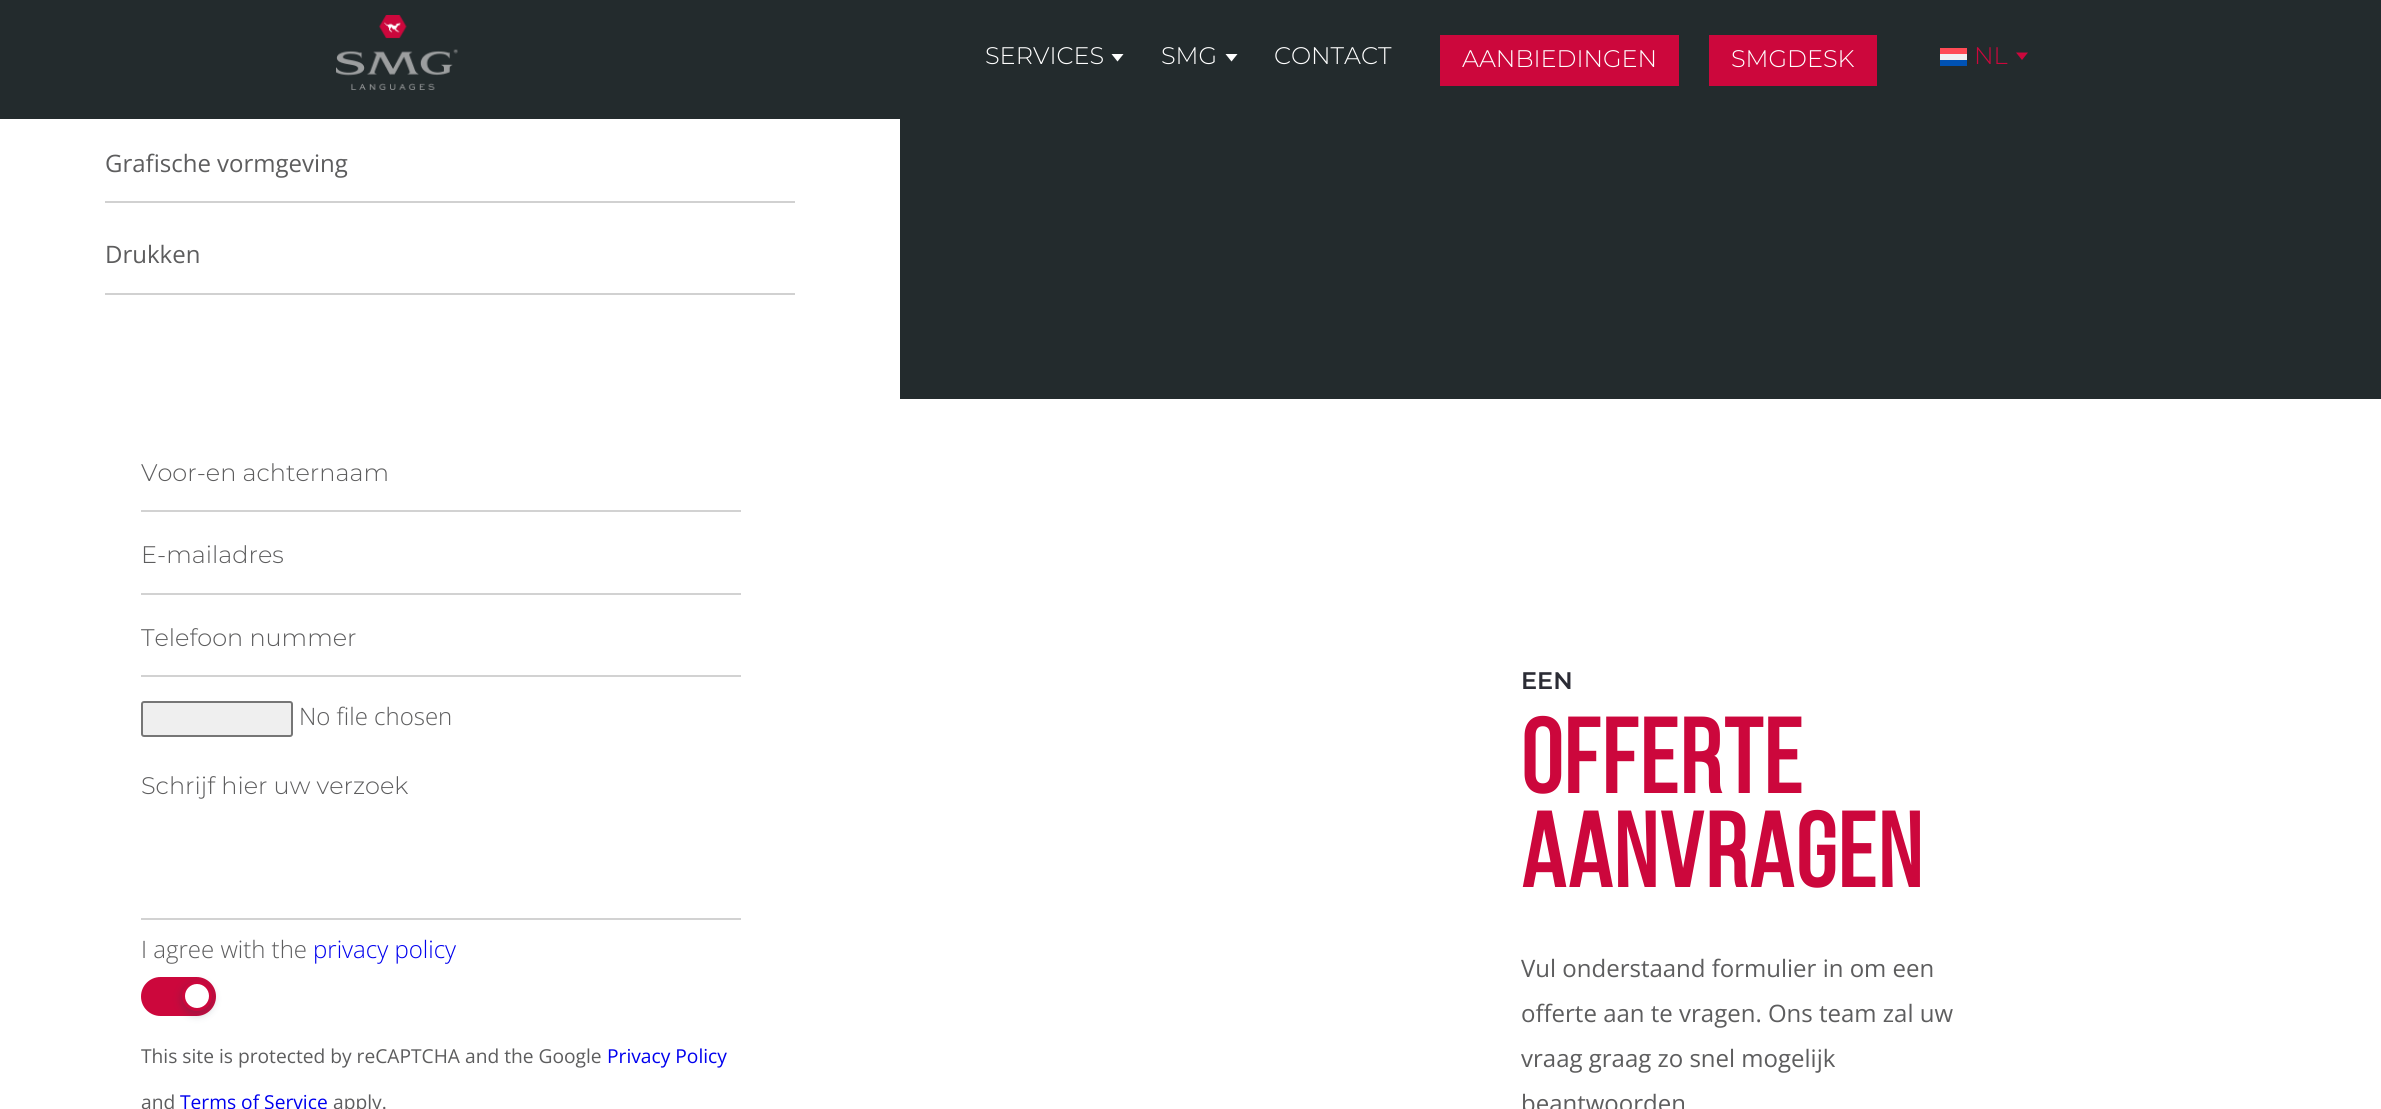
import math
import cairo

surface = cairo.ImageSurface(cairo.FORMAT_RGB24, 2381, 1109)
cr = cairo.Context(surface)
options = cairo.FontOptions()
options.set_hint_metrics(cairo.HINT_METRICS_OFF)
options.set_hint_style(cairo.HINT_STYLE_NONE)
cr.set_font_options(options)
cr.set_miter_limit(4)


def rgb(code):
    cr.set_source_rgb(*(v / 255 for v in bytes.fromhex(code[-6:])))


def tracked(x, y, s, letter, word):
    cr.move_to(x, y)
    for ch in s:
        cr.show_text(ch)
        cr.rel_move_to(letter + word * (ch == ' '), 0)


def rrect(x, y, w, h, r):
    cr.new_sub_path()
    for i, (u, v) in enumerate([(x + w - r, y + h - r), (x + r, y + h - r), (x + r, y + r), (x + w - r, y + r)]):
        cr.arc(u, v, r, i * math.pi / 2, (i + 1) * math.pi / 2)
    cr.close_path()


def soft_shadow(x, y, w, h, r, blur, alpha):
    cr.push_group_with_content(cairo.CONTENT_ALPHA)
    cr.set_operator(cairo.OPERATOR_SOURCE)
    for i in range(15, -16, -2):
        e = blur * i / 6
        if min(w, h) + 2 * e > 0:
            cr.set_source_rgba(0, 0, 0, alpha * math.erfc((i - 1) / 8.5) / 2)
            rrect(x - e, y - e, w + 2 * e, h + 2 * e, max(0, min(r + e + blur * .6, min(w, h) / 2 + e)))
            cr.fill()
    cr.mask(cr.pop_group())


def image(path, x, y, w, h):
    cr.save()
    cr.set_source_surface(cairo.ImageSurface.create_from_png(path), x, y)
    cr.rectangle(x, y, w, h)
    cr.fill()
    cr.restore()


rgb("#ffffff")
cr.paint()
rgb("#232b2d")
cr.rectangle(0, 0, 2381, 119)
cr.fill()
image("img/1.png", 336, 15, 122, 75)
rgb("#ffffff")
cr.new_path()
cr.move_to(1111.5, 54)
cr.line_to(1123.5, 54)
cr.line_to(1117.5, 61.5)
cr.close_path()
cr.fill()
cr.new_path()
cr.move_to(1225.5, 54)
cr.line_to(1237.5, 54)
cr.line_to(1231.5, 61.5)
cr.close_path()
cr.fill()
for x, y, w, h, color in [
    (1440, 35, 239, 51, "#cc073c"),
    (1709, 35, 168, 51, "#cc073c"),
    (1940, 54, 27, 6, "#f0f0f0"),
    (1940, 60, 27, 6, "#0052b4"),
    (1940, 48, 27, 6, "#ff4b55"),
]:
    rgb(color)
    cr.rectangle(x, y, w, h)
    cr.fill()
rgb("#cc073c")
cr.new_path()
cr.move_to(2016, 52.5)
cr.line_to(2028, 52.5)
cr.line_to(2022, 60)
cr.close_path()
cr.fill()
for x, y, w, h, color in [
    (900, 119, 1481, 280, "#232b2d"),
    (105, 201, 690, 2, "#d1d1d1"),
    (105, 293, 690, 2, "#d1d1d1"),
    (141, 510, 600, 2, "#d2d2d2"),
    (141, 593, 600, 2, "#d2d2d2"),
    (141, 675, 600, 2, "#d2d2d2"),
]:
    rgb(color)
    cr.rectangle(x, y, w, h)
    cr.fill()
rgb("#efefef")
rrect(142, 702, 150, 34, 2)
cr.fill_preserve()
rgb("#767676")
cr.stroke()
rgb("#d2d2d2")
cr.rectangle(141, 918, 600, 2)
cr.fill()
rgb("#cc073c")
rrect(141, 977, 75, 39, 19.5)
cr.fill()
rgb("#293a52")
soft_shadow(182, 984, 30, 30, 15, 4.5, 0.31)
rgb("#ffffff")
cr.arc(197, 996, 13.5, 0, 2 * math.pi)
cr.fill_preserve()
rgb("#cc073c")
cr.set_line_width(3)
cr.stroke()
cr.select_font_face("Montserrat Light")
cr.set_font_size(24)
rgb("#ffffff")
for x, y, s in [
    (985, 64, "SERVICES"),
    (1161, 64, "SMG"),
    (1274, 64, "CONTACT"),
    (1462, 67, "AANBIEDINGEN"),
    (1731, 67, "SMGDESK"),
]:
    cr.move_to(x, y)
    cr.show_text(s)
rgb("#cc073c")
cr.move_to(1974, 64)
cr.show_text("NL")
cr.select_font_face("Open Sans")
rgb("#5d5d5e")
cr.move_to(105, 172)
cr.show_text("Grafische vormgeving")
cr.move_to(105, 263)
cr.show_text("Drukken")
cr.select_font_face("Montserrat Light")
for x, y, s in [
    (141, 481, "Voor-en achternaam"),
    (141, 563, "E-mailadres"),
    (141, 646, "Telefoon nummer"),
]:
    cr.move_to(x, y)
    cr.show_text(s)
cr.select_font_face("Open Sans Light")
cr.move_to(299, 725)
cr.show_text("No file chosen")
cr.select_font_face("Montserrat Light")
cr.move_to(141, 794)
cr.show_text("Schrijf hier uw verzoek")
cr.select_font_face("Open Sans Light")
cr.move_to(141, 958)
cr.show_text("I agree with the")
rgb("#0000ee")
cr.move_to(313, 958)
cr.show_text("privacy policy")
cr.select_font_face("Open Sans")
cr.set_font_size(19.2)
rgb("#5d5d5e")
cr.move_to(141, 1063)
cr.show_text("This site is protected by reCAPTCHA and the Google")
rgb("#0000ee")
cr.move_to(607, 1063)
cr.show_text("Privacy Policy")
rgb("#5d5d5e")
cr.move_to(141, 1109)
cr.show_text("and")
rgb("#0000ee")
cr.move_to(180, 1109)
cr.show_text("Terms of Service")
rgb("#5d5d5e")
cr.move_to(333, 1109)
cr.show_text("apply.")
cr.select_font_face("Montserrat SemiBold")
cr.set_font_size(24)
rgb("#2b2c35")
cr.move_to(1521, 689)
cr.show_text("EEN")
cr.select_font_face("Bebas Neue", cairo.FONT_SLANT_NORMAL, cairo.FONT_WEIGHT_BOLD)
cr.set_font_size(105)
rgb("#cc073c")
tracked(1521, 793, "OFFERTE", 2.25, 0)
tracked(1521, 887, "AANVRAGEN", 2.25, 0)
cr.select_font_face("Open Sans")
cr.set_font_size(24)
rgb("#5d5d5e")
for x, y, s in [
    (1521, 977, "Vul onderstaand formulier in om een"),
    (1521, 1022, "offerte aan te vragen. Ons team zal uw"),
    (1521, 1067, "vraag graag zo snel mogelijk"),
    (1521, 1112, "beantwoorden"),
]:
    cr.move_to(x, y)
    cr.show_text(s)
surface.write_to_png("page.png")
